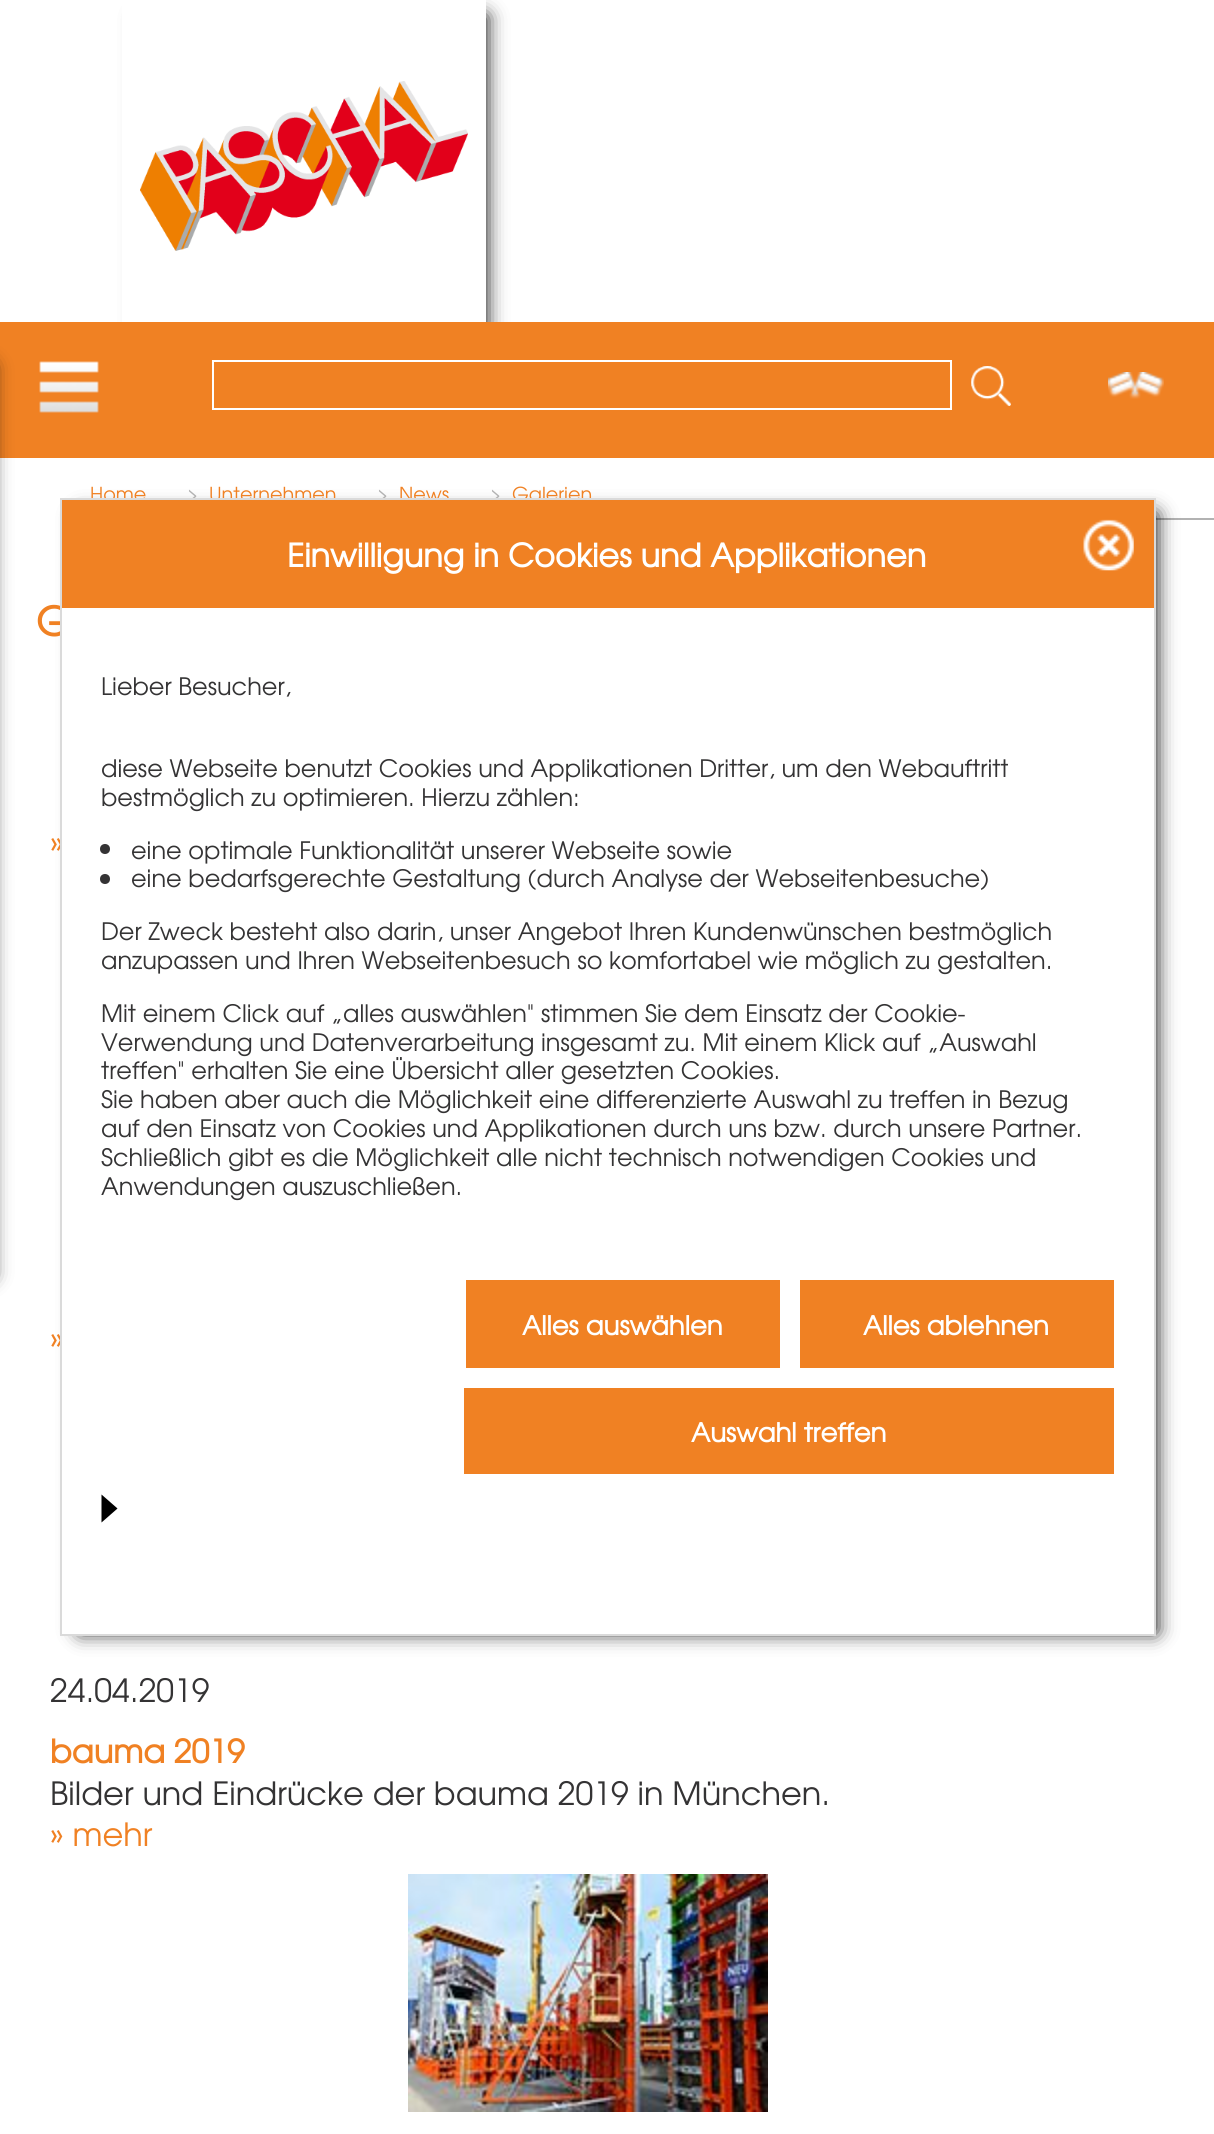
import math
import cairo

surface = cairo.ImageSurface(cairo.FORMAT_RGB24, 1214, 2134)
cr = cairo.Context(surface)
options = cairo.FontOptions()
options.set_hint_metrics(cairo.HINT_METRICS_OFF)
options.set_hint_style(cairo.HINT_STYLE_NONE)
cr.set_font_options(options)
cr.set_miter_limit(4)


def rgb(code):
    cr.set_source_rgb(*(v / 255 for v in bytes.fromhex(code[-6:])))


def rrect(x, y, w, h, r):
    cr.new_sub_path()
    for i, (u, v) in enumerate([(x + w - r, y + h - r), (x + r, y + h - r), (x + r, y + r), (x + w - r, y + r)]):
        cr.arc(u, v, r, i * math.pi / 2, (i + 1) * math.pi / 2)
    cr.close_path()


def soft_shadow(x, y, w, h, r, blur, alpha):
    cr.push_group_with_content(cairo.CONTENT_ALPHA)
    cr.set_operator(cairo.OPERATOR_SOURCE)
    for i in range(15, -16, -2):
        e = blur * i / 6
        if min(w, h) + 2 * e > 0:
            cr.set_source_rgba(0, 0, 0, alpha * math.erfc((i - 1) / 8.5) / 2)
            rrect(x - e, y - e, w + 2 * e, h + 2 * e, max(0, min(r + e + blur * .6, min(w, h) / 2 + e)))
            cr.fill()
    cr.mask(cr.pop_group())


def image(path, x, y, w, h):
    cr.save()
    cr.set_source_surface(cairo.ImageSurface.create_from_png(path), x, y)
    cr.rectangle(x, y, w, h)
    cr.fill()
    cr.restore()


rgb("#ffffff")
cr.paint()
cr.save()
cr.set_fill_rule(cairo.FILL_RULE_EVEN_ODD)
cr.new_path()
cr.move_to(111, 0)
cr.line_to(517, 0)
cr.line_to(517, 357)
cr.line_to(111, 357)
cr.close_path()
cr.move_to(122, 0)
cr.line_to(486, 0)
cr.line_to(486, 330)
cr.line_to(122, 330)
cr.close_path()
cr.clip()
rgb("#000000")
soft_shadow(142, 16, 344, 310, 0, 10, 1)
cr.restore()
image("img/1.png", 140, 81, 328, 170)
rgb("#f08123")
cr.rectangle(0, 322, 1214, 136)
cr.fill()
rgb("#000000")
soft_shadow(-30, 366, 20, 910, 0, 10, 1)
cr.rectangle(213, 361, 738, 48)
rgb("#ffffff")
cr.stroke()
image("img/2.png", 971, 366, 40, 40)
image("img/3.png", 1108, 372, 56, 27)
image("img/4.png", 39, 361, 60, 52)
rgb("#b2b2b2")
cr.rectangle(1156, 518, 58, 2)
cr.fill()
image("img/5.png", 408, 1874, 360, 238)
rgb("#000000")
soft_shadow(80, 514, 1076, 1118, 0, 10, 1)
cr.select_font_face("TeX Gyre Adventor")
cr.set_font_size(19.25)
rgb("#f08123")
cr.move_to(90, 501)
cr.show_text("Home")
rgb("#b2b2b2")
cr.move_to(187, 501)
cr.show_text(">")
rgb("#f08123")
cr.move_to(209, 501)
cr.show_text("Unternehmen")
rgb("#b2b2b2")
cr.move_to(377, 501)
cr.show_text(">")
rgb("#f08123")
cr.move_to(399, 501)
cr.show_text("News")
rgb("#b2b2b2")
cr.move_to(490, 501)
cr.show_text(">")
rgb("#f08123")
cr.move_to(512, 501)
cr.show_text("Galerien")
cr.select_font_face("TeX Gyre Adventor", cairo.FONT_SLANT_NORMAL, cairo.FONT_WEIGHT_BOLD)
cr.set_font_size(40)
cr.move_to(36, 636)
cr.show_text("G")
cr.select_font_face("TeX Gyre Adventor")
cr.set_font_size(32)
cr.move_to(50, 854)
cr.show_text("»")
cr.move_to(50, 1350)
cr.show_text("»")
rgb("#343334")
cr.move_to(50, 1702)
cr.show_text("24.04.2019")
cr.select_font_face("TeX Gyre Adventor", cairo.FONT_SLANT_NORMAL, cairo.FONT_WEIGHT_BOLD)
rgb("#f08123")
cr.move_to(50, 1763)
cr.show_text("bauma 2019")
cr.select_font_face("TeX Gyre Adventor")
rgb("#343334")
cr.move_to(50, 1805)
cr.show_text("Bilder und Eindrücke der bauma 2019 in München.")
rgb("#f08123")
cr.move_to(50, 1846)
cr.show_text("» mehr")
rgb("#ffffff")
cr.rectangle(62, 608, 1092, 1026)
cr.fill()
cr.rectangle(61, 499, 1094, 1136)
rgb("#dadada")
cr.stroke()
rgb("#f08123")
cr.rectangle(62, 500, 1092, 108)
cr.fill()
cr.select_font_face("TeX Gyre Adventor", cairo.FONT_SLANT_NORMAL, cairo.FONT_WEIGHT_BOLD)
rgb("#ffffff")
cr.move_to(287, 567)
cr.show_text("Einwilligung in Cookies und Applikationen")
image("img/6.png", 1083, 519, 51, 52)
cr.select_font_face("TeX Gyre Adventor")
cr.set_font_size(24)
rgb("#343334")
for x, y, s in [
    (101, 695, "Lieber Besucher,"),
    (101, 777, "diese Webseite benutzt Cookies und Applikationen Dritter, um den Webauftritt"),
    (101, 806, "bestmöglich zu optimieren. Hierzu zählen:"),
]:
    cr.move_to(x, y)
    cr.show_text(s)
cr.new_path()
cr.arc(105, 849, 5, 0, 2 * math.pi)
cr.fill()
cr.move_to(131, 859)
cr.show_text("eine optimale Funktionalität unserer Webseite sowie")
cr.new_path()
cr.arc(105, 879, 5, 0, 2 * math.pi)
cr.fill()
for x, y, s in [
    (131, 887, "eine bedarfsgerechte Gestaltung (durch Analyse der Webseitenbesuche)"),
    (101, 940, "Der Zweck besteht also darin, unser Angebot Ihren Kundenwünschen bestmöglich"),
    (101, 969, "anzupassen und Ihren Webseitenbesuch so komfortabel wie möglich zu gestalten."),
    (101, 1022, "Mit einem Click auf „alles auswählen\" stimmen Sie dem Einsatz der Cookie-"),
    (101, 1051, "Verwendung und Datenverarbeitung insgesamt zu. Mit einem Klick auf „Auswahl"),
    (101, 1079, "treffen\" erhalten Sie eine Übersicht aller gesetzten Cookies."),
    (101, 1108, "Sie haben aber auch die Möglichkeit eine differenzierte Auswahl zu treffen in Bezug"),
    (101, 1137, "auf den Einsatz von Cookies und Applikationen durch uns bzw. durch unsere Partner."),
    (101, 1166, "Schließlich gibt es die Möglichkeit alle nicht technisch notwendigen Cookies und"),
    (101, 1195, "Anwendungen auszuschließen."),
]:
    cr.move_to(x, y)
    cr.show_text(s)
rgb("#f08123")
cr.rectangle(466, 1280, 314, 88)
cr.fill()
cr.select_font_face("TeX Gyre Adventor", cairo.FONT_SLANT_NORMAL, cairo.FONT_WEIGHT_BOLD)
cr.set_font_size(26)
rgb("#ffffff")
cr.move_to(522, 1335)
cr.show_text("Alles auswählen")
rgb("#f08123")
cr.rectangle(800, 1280, 314, 88)
cr.fill()
rgb("#ffffff")
cr.move_to(863, 1335)
cr.show_text("Alles ablehnen")
rgb("#f08123")
cr.rectangle(464, 1388, 650, 86)
cr.fill()
rgb("#ffffff")
cr.move_to(691, 1442)
cr.show_text("Auswahl treffen")
rgb("#000000")
cr.new_path()
cr.move_to(101.5, 1522.5)
cr.line_to(101.5, 1494.5)
cr.line_to(117.5, 1508.5)
cr.close_path()
cr.fill()
surface.write_to_png("page.png")
